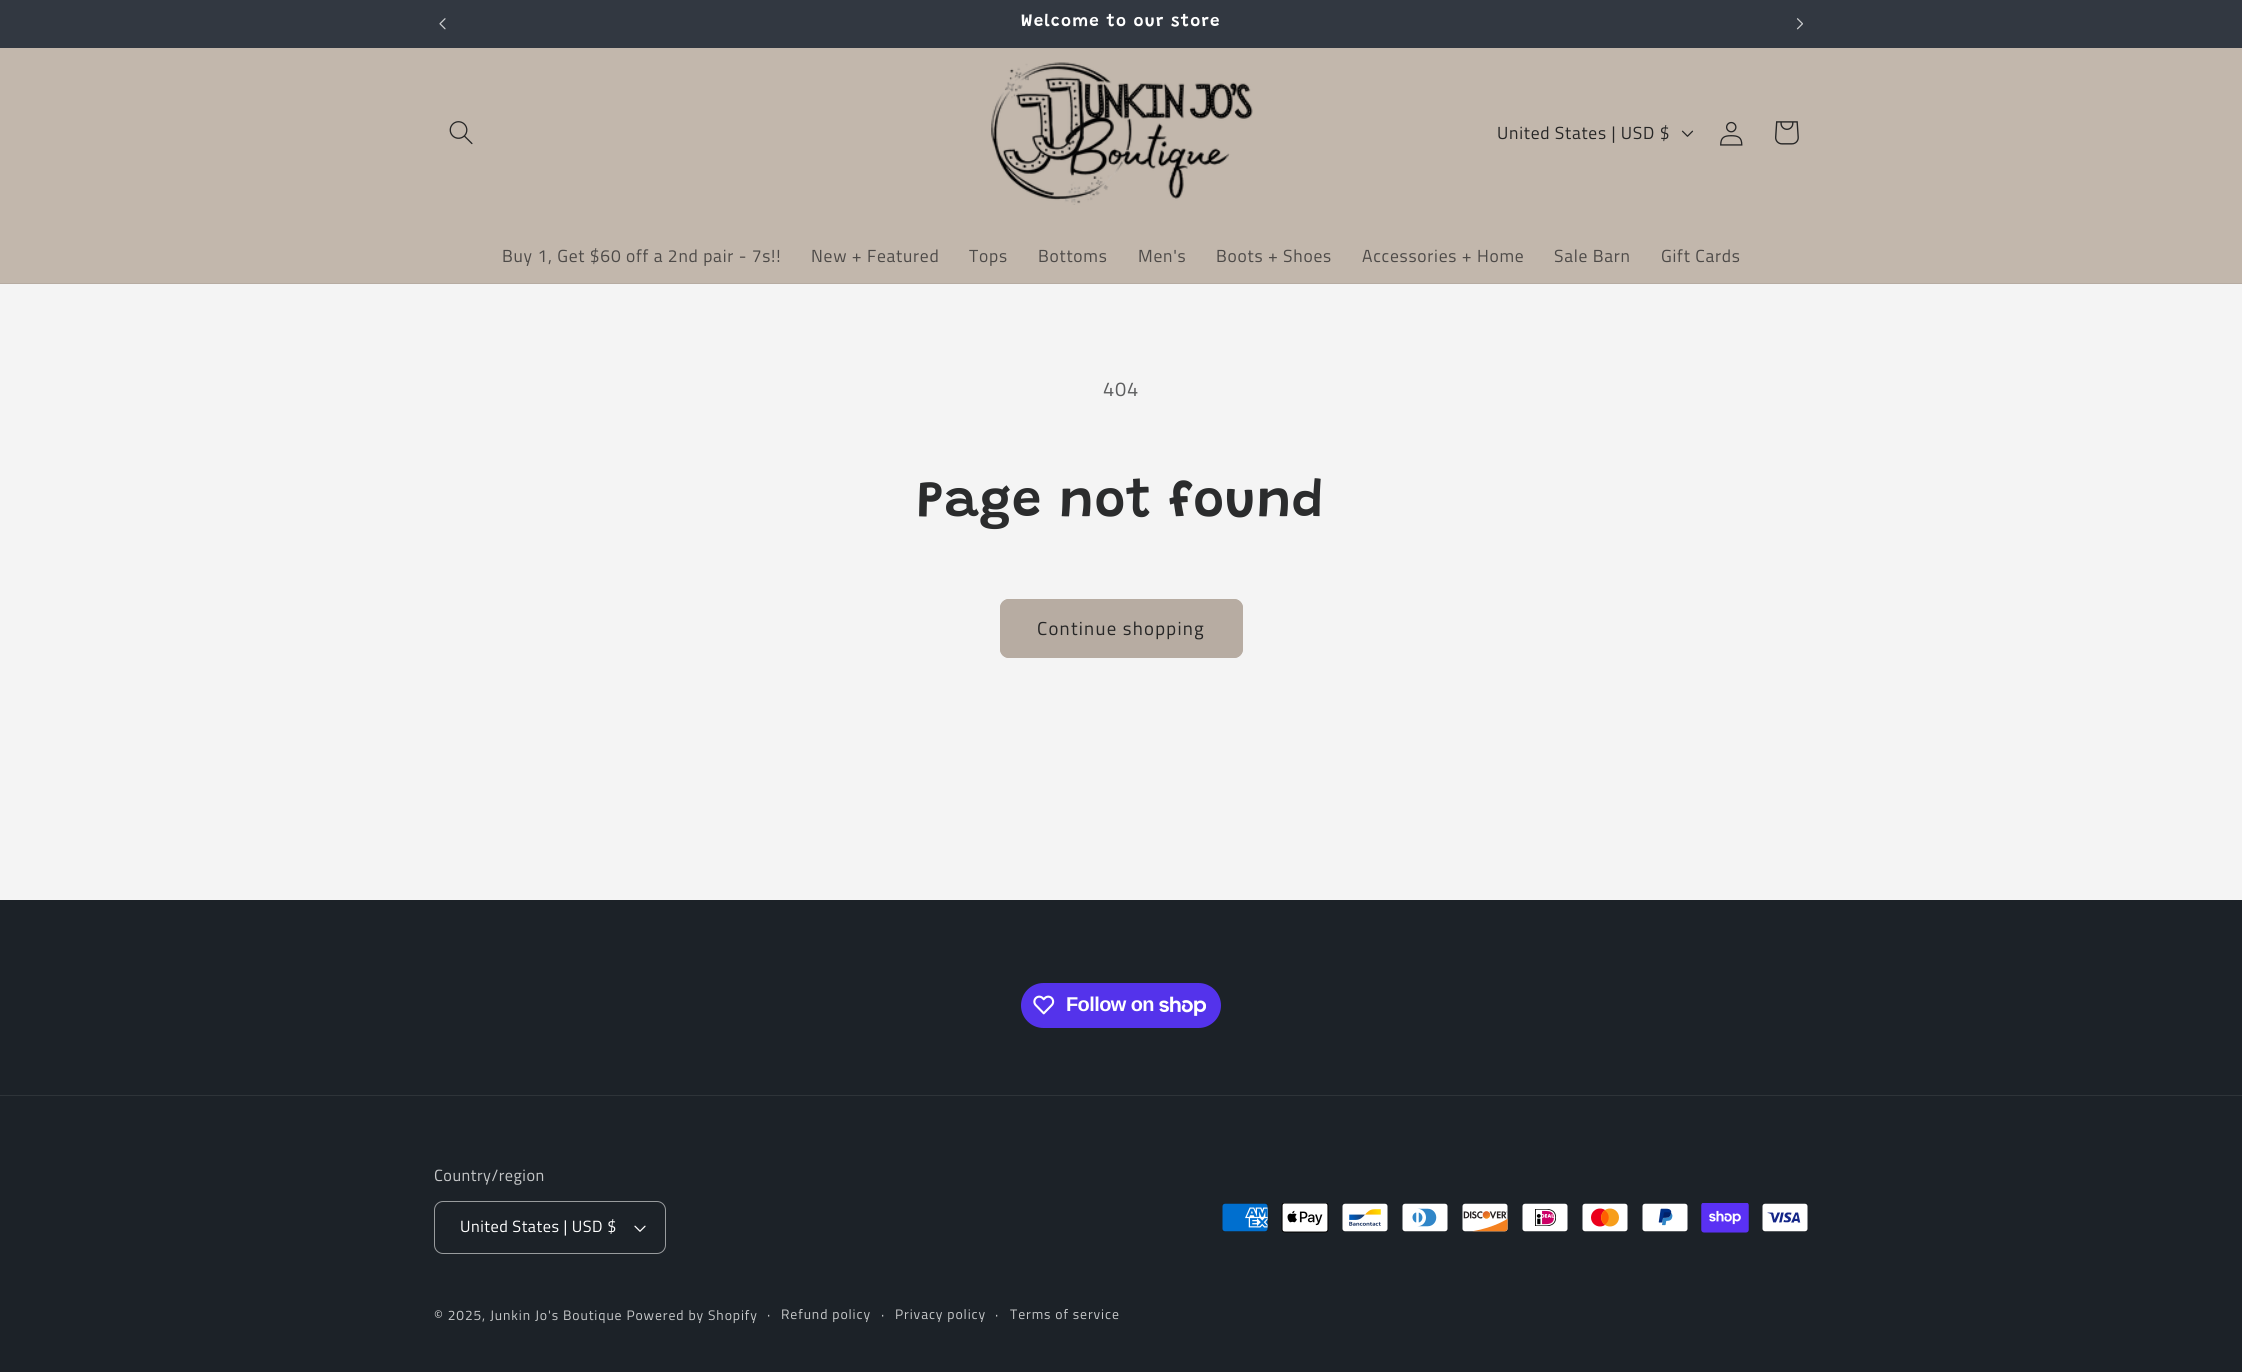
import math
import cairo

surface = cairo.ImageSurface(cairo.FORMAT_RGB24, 2242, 1372)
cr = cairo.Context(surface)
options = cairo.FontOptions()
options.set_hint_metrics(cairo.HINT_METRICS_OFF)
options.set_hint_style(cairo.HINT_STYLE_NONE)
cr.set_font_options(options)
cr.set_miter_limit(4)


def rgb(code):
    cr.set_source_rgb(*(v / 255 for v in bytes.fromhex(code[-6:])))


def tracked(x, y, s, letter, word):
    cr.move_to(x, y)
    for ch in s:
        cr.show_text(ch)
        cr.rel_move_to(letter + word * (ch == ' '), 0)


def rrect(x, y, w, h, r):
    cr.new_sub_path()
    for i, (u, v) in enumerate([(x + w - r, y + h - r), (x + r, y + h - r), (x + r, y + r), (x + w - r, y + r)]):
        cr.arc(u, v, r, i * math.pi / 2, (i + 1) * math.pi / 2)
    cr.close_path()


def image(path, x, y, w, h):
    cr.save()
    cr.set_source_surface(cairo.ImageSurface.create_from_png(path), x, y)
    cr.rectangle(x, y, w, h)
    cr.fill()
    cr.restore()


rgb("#f4f4f4")
cr.paint()
rgb("#323841")
cr.rectangle(0, 0, 2242, 48)
cr.fill()
image("img/1.png", 439, 18, 7, 12)
image("img/2.png", 1796, 18, 7, 12)
rgb("#c2b7ac")
cr.rectangle(0, 48, 2242, 235)
cr.fill()
rgb("#b6aba1")
cr.rectangle(0, 283, 2242, 1)
cr.fill()
image("img/3.png", 449, 121, 24, 24)
image("img/4.png", 991, 62, 262, 143)
image("img/5.png", 1681, 130, 13, 7)
image("img/6.png", 1720, 121, 23, 25)
image("img/7.png", 1775, 121, 24, 24)
rgb("#b7aca2")
rrect(1000, 599, 243, 59, 9)
cr.fill()
rrect(1000.5, 599.5, 242, 58, 8.5)
cr.set_line_width(1)
cr.stroke()
rgb("#1c2228")
cr.rectangle(0, 900, 2242, 472)
cr.fill()
rgb("#5433eb")
rrect(1021, 983, 200, 45, 22.5)
cr.fill()
image("img/8.png", 1033, 995, 22, 20)
image("img/9.png", 1159, 996, 47, 20)
rgb("#2e3439")
cr.rectangle(0, 1095, 2242, 1)
cr.fill()
image("img/10.png", 634, 1225, 12, 7)
rrect(434.5, 1201.5, 231, 52, 8.5)
rgb("#999c9e")
cr.stroke()
image("img/11.png", 1222, 1203, 46, 29)
image("img/12.png", 1281, 1203, 48, 30)
image("img/13.png", 1342, 1203, 46, 29)
image("img/14.png", 1402, 1203, 46, 29)
image("img/15.png", 1462, 1203, 46, 29)
image("img/16.png", 1522, 1203, 46, 29)
image("img/17.png", 1582, 1203, 46, 29)
image("img/18.png", 1642, 1203, 46, 29)
image("img/19.png", 1701, 1203, 48, 30)
image("img/20.png", 1762, 1203, 46, 29)
cr.select_font_face("Grandstander SemiBold")
cr.set_font_size(17)
rgb("#ffffff")
tracked(1021, 26, "Welcome to our store", 1.25, 0)
cr.select_font_face("Titillium Web")
cr.set_font_size(17.5)
rgb("#262626")
tracked(1497, 139, "United States | USD $", 0.75, 0)
rgb("#4d4a48")
for x, y, s in [
    (502, 262, "Buy 1, Get $60 off a 2nd pair - 7s!!"),
    (811, 262, "New + Featured"),
    (969, 262, "Tops"),
    (1038, 262, "Bottoms"),
    (1138, 262, "Men's"),
    (1216, 262, "Boots + Shoes"),
    (1362, 262, "Accessories + Home"),
    (1554, 262, "Sale Barn"),
    (1661, 262, "Gift Cards"),
]:
    tracked(x, y, s, 0.75, 0)
cr.set_font_size(20)
rgb("#5d5e5f")
tracked(1103, 396, "404", 0.75, 0)
cr.select_font_face("Grandstander SemiBold")
cr.set_font_size(52.5)
rgb("#2b2c2d")
tracked(917, 516, "Page not found", 0.75, 0)
cr.select_font_face("Titillium Web")
cr.set_font_size(18.75)
rgb("#262626")
tracked(1037, 635, "Continue shopping", 1.25, 0)
cr.select_font_face("Liberation Sans", cairo.FONT_SLANT_NORMAL, cairo.FONT_WEIGHT_BOLD)
cr.set_font_size(20)
rgb("#ffffff")
tracked(1066, 1011, "Follow on", -0.6, 0)
cr.select_font_face("Titillium Web")
cr.set_font_size(16.25)
rgb("#c6c8c9")
tracked(434, 1181, "Country/region", 0.5, 0)
rgb("#ffffff")
tracked(460, 1232, "United States | USD $", 0.5, 0)
cr.set_font_size(13.75)
rgb("#c6c8c9")
tracked(434, 1320, "© 2025, Junkin Jo's Boutique Powered by Shopify", 0.9, 0)
cr.set_font_size(15)
tracked(767, 1320, "·", 0.9, 0)
cr.set_font_size(13.75)
tracked(781, 1319, "Refund policy", 0.9, 0)
cr.set_font_size(15)
tracked(881, 1320, "·", 0.9, 0)
cr.set_font_size(13.75)
tracked(895, 1319, "Privacy policy", 0.9, 0)
cr.set_font_size(15)
tracked(995, 1320, "·", 0.9, 0)
cr.set_font_size(13.75)
tracked(1010, 1319, "Terms of service", 0.9, 0)
surface.write_to_png("page.png")
